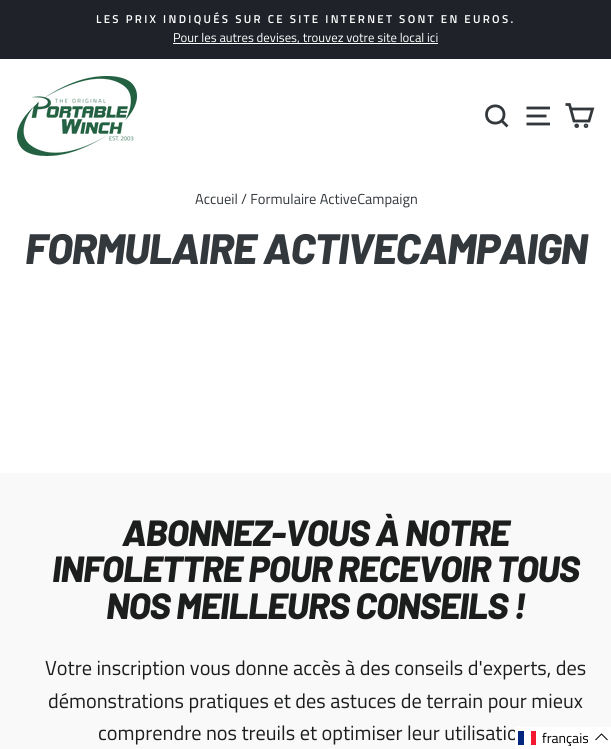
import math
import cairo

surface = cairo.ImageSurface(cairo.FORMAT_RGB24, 611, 749)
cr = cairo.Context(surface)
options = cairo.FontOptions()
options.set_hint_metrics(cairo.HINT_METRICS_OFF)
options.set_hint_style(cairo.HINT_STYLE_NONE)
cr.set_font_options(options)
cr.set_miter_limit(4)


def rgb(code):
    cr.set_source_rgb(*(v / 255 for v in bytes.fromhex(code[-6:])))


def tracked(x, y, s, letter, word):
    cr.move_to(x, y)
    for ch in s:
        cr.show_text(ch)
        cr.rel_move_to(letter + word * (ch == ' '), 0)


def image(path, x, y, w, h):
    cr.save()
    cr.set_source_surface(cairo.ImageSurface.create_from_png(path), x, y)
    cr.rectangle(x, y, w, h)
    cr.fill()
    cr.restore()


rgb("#ffffff")
cr.paint()
rgb("#1f2329")
cr.rectangle(0, 0, 611, 59)
cr.fill()
rgb("#ffffff")
cr.rectangle(173, 43, 265, 1)
cr.fill()
image("img/1.png", 17, 76, 120, 80)
cr.new_path()
cr.move_to(504, 114.5)
cr.curve_to(504, 126, 486.5, 126, 486.5, 114.5)
cr.curve_to(486.5, 103, 504, 103, 504, 114.5)
cr.close_path()
cr.move_to(507.5, 126.5)
cr.line_to(501.5, 120.5)
rgb("#33383d")
cr.set_line_width(2.8)
cr.stroke()
cr.new_path()
cr.move_to(526.5, 108)
cr.line_to(550, 108)
cr.move_to(526.5, 116)
cr.line_to(546.5, 116)
cr.move_to(526.5, 124)
cr.line_to(550, 124)
cr.stroke()
cr.new_path()
cr.move_to(570.5, 109)
cr.line_to(592.5, 109)
cr.line_to(589, 121)
cr.line_to(574, 121)
cr.line_to(569.5, 104.5)
cr.line_to(565.5, 104.5)
cr.stroke()
cr.arc(576.7, 125.8, 0.9, 0, 2 * math.pi)
cr.fill_preserve()
cr.stroke()
cr.arc(586, 125.8, 0.9, 0, 2 * math.pi)
cr.stroke()
rgb("#f9f9f9")
cr.rectangle(0, 473, 611, 276)
cr.fill()
cr.select_font_face("Titillium Web SemiBold")
cr.set_font_size(11.45)
rgb("#ffffff")
tracked(96, 23, "LES PRIX INDIQUÉS SUR CE SITE INTERNET SONT EN EUROS.", 2.3, 0)
cr.select_font_face("Titillium Web")
cr.set_font_size(12.75)
cr.move_to(173, 42)
cr.show_text("Pour les autres devises, trouvez votre site local ici")
cr.set_font_size(14.5)
rgb("#33383d")
cr.move_to(195, 204)
cr.show_text("Accueil / Formulaire ActiveCampaign")
cr.select_font_face("Barlow ExtraBold", cairo.FONT_SLANT_ITALIC)
cr.set_font_size(42.5)
tracked(25, 264, "FORMULAIRE ACTIVECAMPAIGN", -1.05, 0)
cr.set_font_size(36.5)
rgb("#1c1d1d")
for x, y, s in [
    (122, 546, "ABONNEZ-VOUS À NOTRE"),
    (52, 582, "INFOLETTRE POUR RECEVOIR TOUS"),
    (106, 619, "NOS MEILLEURS CONSEILS !"),
]:
    tracked(x, y, s, -0.9, 0)
cr.select_font_face("Titillium Web")
cr.set_font_size(20.3)
for x, y, s in [
    (45, 675, "Votre inscription vous donne accès à des conseils d'experts, des"),
    (48, 708, "démonstrations pratiques et des astuces de terrain pour mieux"),
    (98, 740, "comprendre nos treuils et optimiser leur utilisatio"),
]:
    cr.move_to(x, y)
    cr.show_text(s)
for x, y, w, h, color in [
    (515, 727, 96, 22, "#ffffff"),
    (518, 731, 6, 14, "#00267f"),
    (531, 731, 5, 14, "#f31830"),
]:
    rgb(color)
    cr.rectangle(x, y, w, h)
    cr.fill()
cr.set_font_size(14)
rgb("#000000")
cr.move_to(542, 743)
cr.show_text("français")
cr.new_path()
cr.move_to(607.5, 740)
cr.line_to(601.5, 734)
cr.line_to(595.5, 740)
cr.set_line_width(1)
cr.stroke()
surface.write_to_png("page.png")
